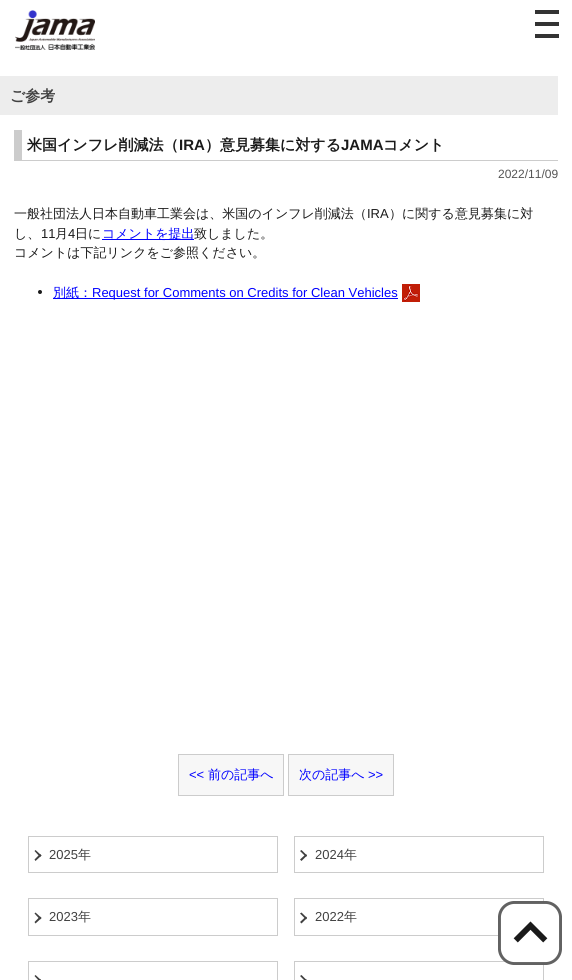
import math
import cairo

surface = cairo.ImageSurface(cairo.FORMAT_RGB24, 572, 980)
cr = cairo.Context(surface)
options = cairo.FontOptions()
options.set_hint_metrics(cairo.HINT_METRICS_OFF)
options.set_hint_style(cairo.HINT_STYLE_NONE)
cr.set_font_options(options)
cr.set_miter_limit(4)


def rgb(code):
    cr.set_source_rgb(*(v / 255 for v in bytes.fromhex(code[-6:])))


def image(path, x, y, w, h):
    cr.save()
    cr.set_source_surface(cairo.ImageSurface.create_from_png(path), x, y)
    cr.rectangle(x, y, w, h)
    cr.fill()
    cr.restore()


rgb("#ffffff")
cr.paint()
image("img/1.png", 15, 10, 80, 40)
for x, y, w, h, color in [
    (535, 10, 24, 4, "#333333"),
    (535, 22, 24, 4, "#333333"),
    (535, 34, 24, 4, "#333333"),
    (0, 76, 558, 39, "#ededed"),
    (14, 160, 544, 1, "#cccccc"),
    (14, 130, 8, 31, "#cccccc"),
    (102, 239, 92, 1, "#0000ff"),
]:
    rgb(color)
    cr.rectangle(x, y, w, h)
    cr.fill()
rgb("#1a1a1a")
cr.arc(40, 292, 2, 0, 2 * math.pi)
cr.fill()
rgb("#0000ff")
cr.rectangle(53, 298, 345, 1)
cr.fill()
image("img/2.png", 402, 284, 18, 18)
rgb("#f7f7f7")
cr.rectangle(178.5, 754.5, 105, 41)
cr.fill_preserve()
rgb("#cccccc")
cr.set_line_width(1)
cr.stroke()
rgb("#f7f7f7")
cr.rectangle(288.5, 754.5, 105, 41)
cr.fill_preserve()
rgb("#cccccc")
cr.stroke()
cr.rectangle(28.5, 836.5, 249, 36)
cr.stroke()
rgb("#404040")
cr.new_path()
cr.move_to(35.5, 850)
cr.line_to(41.5, 855.5)
cr.line_to(40, 857)
cr.line_to(34.5, 851)
cr.close_path()
cr.fill()
cr.new_path()
cr.move_to(40, 854)
cr.line_to(41.5, 855.5)
cr.line_to(35.5, 861)
cr.line_to(34.5, 859.5)
cr.close_path()
cr.fill()
cr.rectangle(294.5, 836.5, 249, 36)
rgb("#cccccc")
cr.stroke()
rgb("#404040")
cr.new_path()
cr.move_to(301.5, 850)
cr.line_to(307, 855.5)
cr.line_to(306, 857)
cr.line_to(300, 851)
cr.close_path()
cr.fill()
cr.new_path()
cr.move_to(306, 854)
cr.line_to(307, 855.5)
cr.line_to(301.5, 861)
cr.line_to(300, 859.5)
cr.close_path()
cr.fill()
cr.rectangle(28.5, 898.5, 249, 37)
rgb("#cccccc")
cr.stroke()
rgb("#404040")
cr.new_path()
cr.move_to(35.5, 912.5)
cr.line_to(41.5, 918)
cr.line_to(40, 919.5)
cr.line_to(34.5, 913.5)
cr.close_path()
cr.fill()
cr.new_path()
cr.move_to(40, 916.5)
cr.line_to(41.5, 918)
cr.line_to(35.5, 923.5)
cr.line_to(34.5, 922)
cr.close_path()
cr.fill()
cr.rectangle(294.5, 898.5, 249, 37)
rgb("#cccccc")
cr.stroke()
rgb("#404040")
cr.new_path()
cr.move_to(301.5, 912.5)
cr.line_to(307, 918)
cr.line_to(306, 919.5)
cr.line_to(300, 913.5)
cr.close_path()
cr.fill()
cr.new_path()
cr.move_to(306, 916.5)
cr.line_to(307, 918)
cr.line_to(301.5, 923.5)
cr.line_to(300, 922)
cr.close_path()
cr.fill()
cr.rectangle(28.5, 961.5, 249, 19)
rgb("#cccccc")
cr.stroke()
rgb("#404040")
cr.new_path()
cr.move_to(35.5, 975)
cr.line_to(41.5, 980.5)
cr.line_to(40, 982)
cr.line_to(34.5, 976)
cr.close_path()
cr.fill()
cr.new_path()
cr.move_to(40, 979)
cr.line_to(41.5, 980.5)
cr.line_to(35.5, 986)
cr.line_to(34.5, 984.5)
cr.close_path()
cr.fill()
cr.rectangle(294.5, 961.5, 249, 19)
rgb("#cccccc")
cr.stroke()
rgb("#404040")
cr.new_path()
cr.move_to(301.5, 975)
cr.line_to(307, 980.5)
cr.line_to(306, 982)
cr.line_to(300, 976)
cr.close_path()
cr.fill()
cr.new_path()
cr.move_to(306, 979)
cr.line_to(307, 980.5)
cr.line_to(301.5, 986)
cr.line_to(300, 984.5)
cr.close_path()
cr.fill()
image("img/3.png", 498, 901, 64, 64)
cr.select_font_face("WenQuanYi Zen Hei", cairo.FONT_SLANT_NORMAL, cairo.FONT_WEIGHT_BOLD)
cr.set_font_size(15)
cr.move_to(10, 101)
cr.show_text("ご参考")
rgb("#1a1a1a")
cr.move_to(27, 150)
cr.show_text("米国インフレ削減法（")
cr.select_font_face("Liberation Sans", cairo.FONT_SLANT_NORMAL, cairo.FONT_WEIGHT_BOLD)
cr.move_to(179, 150)
cr.show_text("IRA")
cr.select_font_face("WenQuanYi Zen Hei", cairo.FONT_SLANT_NORMAL, cairo.FONT_WEIGHT_BOLD)
cr.move_to(205, 150)
cr.show_text("）意見募集に対する")
cr.select_font_face("Liberation Sans", cairo.FONT_SLANT_NORMAL, cairo.FONT_WEIGHT_BOLD)
cr.move_to(341, 150)
cr.show_text("JAMA")
cr.select_font_face("WenQuanYi Zen Hei", cairo.FONT_SLANT_NORMAL, cairo.FONT_WEIGHT_BOLD)
cr.move_to(383, 150)
cr.show_text("コメント")
cr.select_font_face("Liberation Sans")
cr.set_font_size(12)
rgb("#555555")
cr.move_to(498, 178)
cr.show_text("2022/11/09")
cr.select_font_face("WenQuanYi Zen Hei Medium")
cr.set_font_size(13)
rgb("#1a1a1a")
cr.move_to(14, 218)
cr.show_text("一般社団法人日本自動車工業会は、米国のインフレ削減法（")
cr.select_font_face("Liberation Sans")
cr.move_to(367, 218)
cr.show_text("IRA")
cr.select_font_face("WenQuanYi Zen Hei Medium")
cr.move_to(389, 218)
cr.show_text("）に関する意見募集に対")
cr.move_to(14, 238)
cr.show_text("し、")
cr.select_font_face("Liberation Sans")
cr.move_to(41, 238)
cr.show_text("11")
cr.select_font_face("WenQuanYi Zen Hei Medium")
cr.move_to(55, 238)
cr.show_text("月")
cr.select_font_face("Liberation Sans")
cr.move_to(68, 238)
cr.show_text("4")
cr.select_font_face("WenQuanYi Zen Hei Medium")
cr.move_to(75, 238)
cr.show_text("日に")
rgb("#0000ff")
cr.move_to(102, 238)
cr.show_text("コメントを提出")
rgb("#1a1a1a")
cr.move_to(194, 238)
cr.show_text("致しました。")
cr.move_to(14, 257)
cr.show_text("コメントは下記リンクをご参照ください。")
rgb("#0000ff")
cr.move_to(53, 297)
cr.show_text("別紙：")
cr.select_font_face("Liberation Sans")
cr.move_to(92, 297)
cr.show_text("Request for Comments on Credits for Clean Vehicles")
cr.move_to(189, 779)
cr.show_text("<<")
cr.select_font_face("WenQuanYi Zen Hei Medium")
cr.move_to(208, 779)
cr.show_text("前の記事へ")
cr.move_to(299, 779)
cr.show_text("次の記事へ")
cr.select_font_face("Liberation Sans")
cr.move_to(368, 779)
cr.show_text(">>")
rgb("#404040")
cr.move_to(49, 859)
cr.show_text("2025")
cr.select_font_face("WenQuanYi Zen Hei Medium")
cr.move_to(78, 859)
cr.show_text("年")
cr.select_font_face("Liberation Sans")
cr.move_to(315, 859)
cr.show_text("2024")
cr.select_font_face("WenQuanYi Zen Hei Medium")
cr.move_to(344, 859)
cr.show_text("年")
cr.select_font_face("Liberation Sans")
cr.move_to(49, 921)
cr.show_text("2023")
cr.select_font_face("WenQuanYi Zen Hei Medium")
cr.move_to(78, 921)
cr.show_text("年")
cr.select_font_face("Liberation Sans")
cr.move_to(315, 921)
cr.show_text("2022")
cr.select_font_face("WenQuanYi Zen Hei Medium")
cr.move_to(344, 921)
cr.show_text("年")
surface.write_to_png("page.png")
